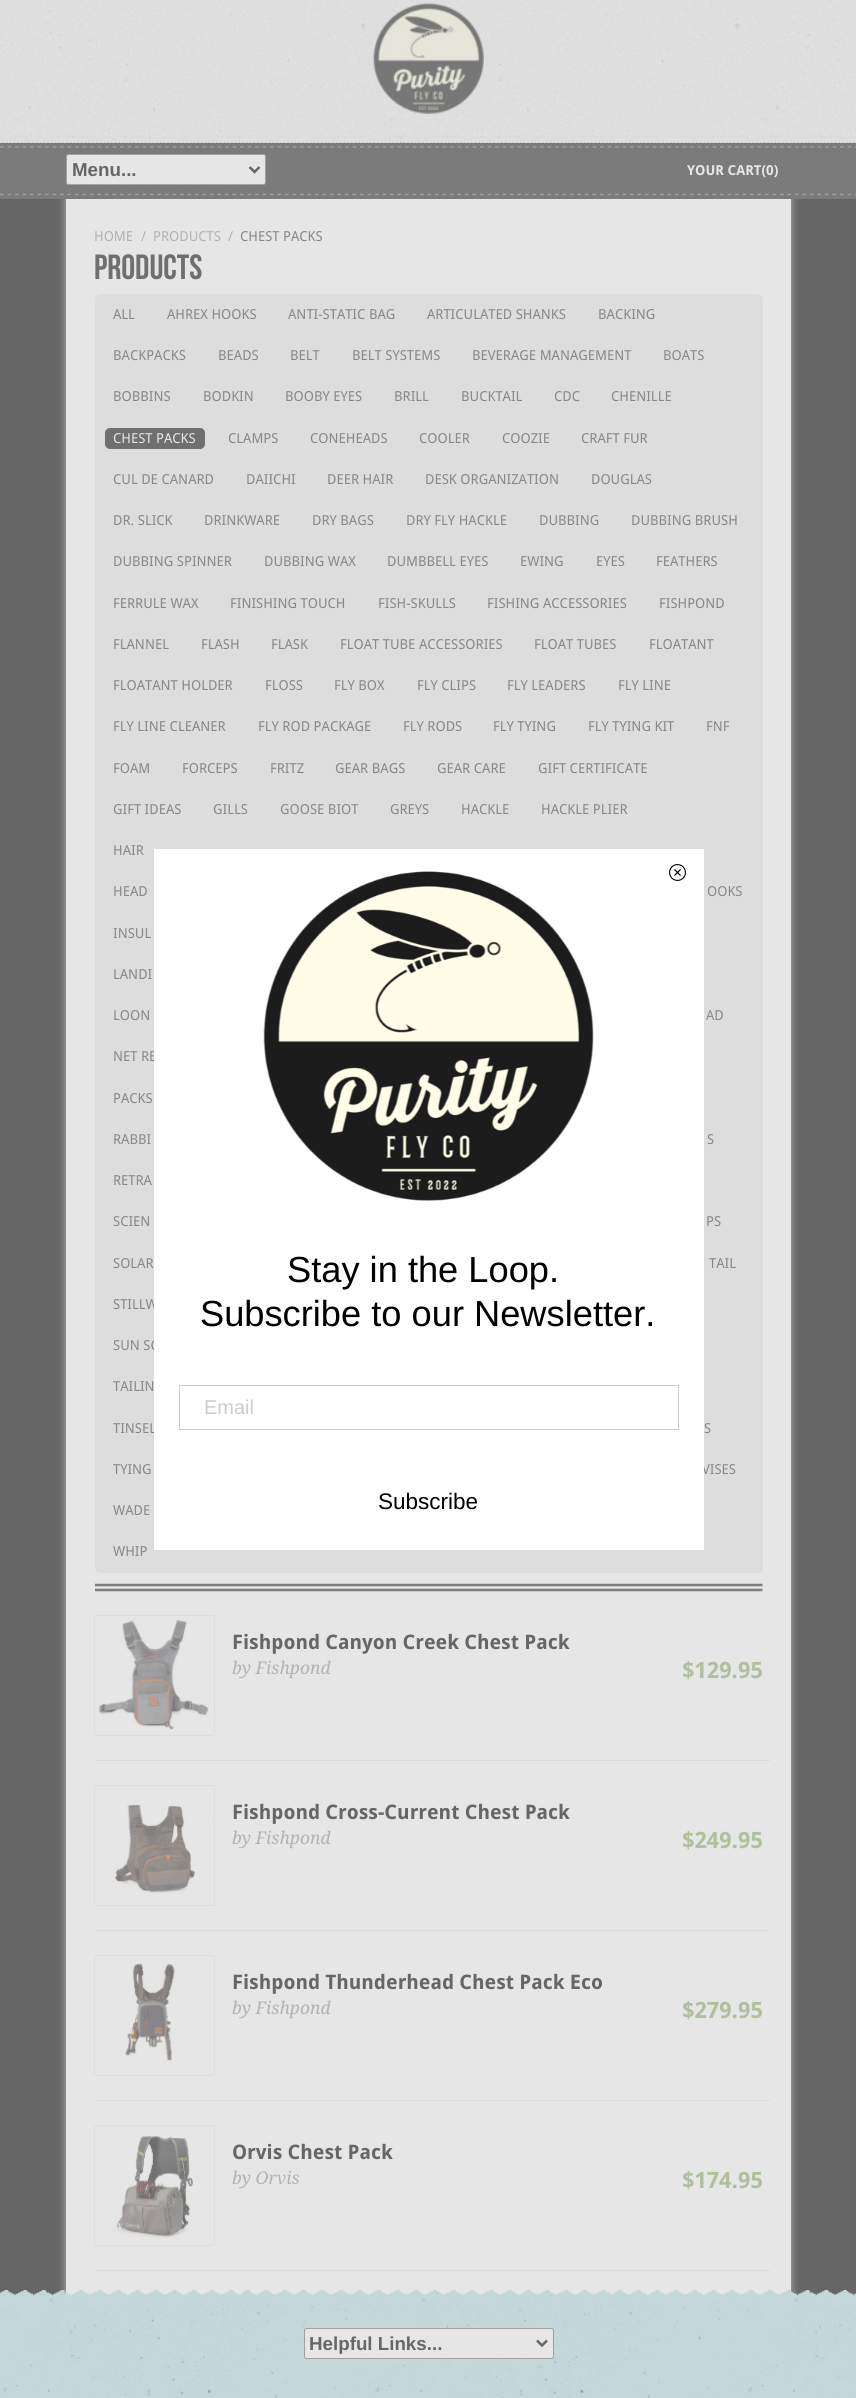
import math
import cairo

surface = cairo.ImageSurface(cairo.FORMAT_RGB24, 856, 2398)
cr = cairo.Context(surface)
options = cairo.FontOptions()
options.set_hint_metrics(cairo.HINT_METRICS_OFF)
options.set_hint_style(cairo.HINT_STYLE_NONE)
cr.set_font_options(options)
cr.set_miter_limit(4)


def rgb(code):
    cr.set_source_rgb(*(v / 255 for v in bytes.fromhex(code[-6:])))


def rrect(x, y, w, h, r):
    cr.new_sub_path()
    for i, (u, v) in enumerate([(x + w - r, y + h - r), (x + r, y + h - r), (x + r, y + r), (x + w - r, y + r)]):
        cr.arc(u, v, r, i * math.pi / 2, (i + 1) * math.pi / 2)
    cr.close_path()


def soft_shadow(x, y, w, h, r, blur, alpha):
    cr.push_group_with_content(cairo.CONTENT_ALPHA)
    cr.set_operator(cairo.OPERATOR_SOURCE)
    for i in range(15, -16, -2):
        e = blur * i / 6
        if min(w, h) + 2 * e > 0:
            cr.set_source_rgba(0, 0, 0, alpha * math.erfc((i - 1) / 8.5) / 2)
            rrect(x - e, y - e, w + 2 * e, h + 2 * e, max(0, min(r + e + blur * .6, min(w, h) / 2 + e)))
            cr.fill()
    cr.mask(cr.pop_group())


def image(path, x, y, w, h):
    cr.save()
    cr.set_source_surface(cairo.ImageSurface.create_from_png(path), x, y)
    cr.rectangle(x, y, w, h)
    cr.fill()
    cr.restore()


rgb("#666666")
cr.paint()
image("img/1.png", 0, 0, 856, 143)
image("img/2.png", 372, 2, 113, 113)
rgb("#b9b9b9")
soft_shadow(66, 199, 725, 2110, 0, 4, 1)
rgb("#808080")
cr.rectangle(0, 143, 856, 56)
cr.fill()
image("img/3.png", 0, 142, 856, 57)
rgb("#e6e6e6")
rrect(66.5, 154.5, 199, 30, 2)
cr.fill_preserve()
rgb("#a1a1a1")
cr.set_line_width(1)
cr.stroke()
cr.new_path()
cr.move_to(249.5, 167)
cr.line_to(254.5, 172)
cr.line_to(259.5, 167)
rgb("#666666")
cr.set_line_width(2.5)
cr.stroke()
rgb("#e6e6e6")
cr.rectangle(66, 199, 725, 2097)
cr.fill()
image("img/4.png", 95, 1583, 668, 9)
rgb("#dddddd")
rrect(95, 294, 668, 1279, 5)
cr.fill()
rgb("#6f6f6f")
rrect(105, 428, 100, 21, 5)
cr.fill()
rgb("#dbdbdb")
cr.rectangle(95, 1760, 675, 1)
cr.fill()
rgb("#c4c4c4")
soft_shadow(95, 1616, 119, 119, 0, 0.5, 1)
rgb("#e6e6e6")
cr.rectangle(95, 1616, 119, 119)
cr.fill()
image("img/5.png", 98, 1619, 111, 111)
rgb("#dbdbdb")
cr.rectangle(95, 1930, 675, 1)
cr.fill()
rgb("#c4c4c4")
soft_shadow(95, 1786, 119, 119, 0, 0.5, 1)
rgb("#e6e6e6")
cr.rectangle(95, 1786, 119, 119)
cr.fill()
image("img/6.png", 114, 1804, 96, 89)
rgb("#dbdbdb")
cr.rectangle(95, 2100, 675, 1)
cr.fill()
rgb("#c4c4c4")
soft_shadow(95, 1956, 119, 119, 0, 0.5, 1)
rgb("#e6e6e6")
cr.rectangle(95, 1956, 119, 119)
cr.fill()
image("img/7.png", 125, 1963, 50, 99)
rgb("#dbdbdb")
cr.rectangle(95, 2270, 675, 1)
cr.fill()
rgb("#c4c4c4")
soft_shadow(95, 2126, 119, 119, 0, 0.5, 1)
rgb("#e6e6e6")
cr.rectangle(95, 2126, 119, 119)
cr.fill()
image("img/8.png", 113, 2136, 80, 102)
image("img/11.png", 0, 2290, 856, 108)
rrect(304.5, 2328.5, 249, 30, 2)
cr.fill_preserve()
rgb("#a1a1a1")
cr.set_line_width(1)
cr.stroke()
cr.new_path()
cr.move_to(537, 2340.5)
cr.line_to(542, 2345.5)
cr.line_to(547, 2340.5)
rgb("#666666")
cr.set_line_width(2.5)
cr.stroke()
cr.select_font_face("Liberation Sans", cairo.FONT_SLANT_NORMAL, cairo.FONT_WEIGHT_BOLD)
cr.set_font_size(18.75)
cr.move_to(72, 176)
cr.show_text("Menu...")
cr.select_font_face("Droid Sans")
cr.set_font_size(13.75)
rgb("#b3b3b3")
for x, y, s in [
    (94, 241, "HOME"),
    (141, 241, "/"),
    (153, 241, "PRODUCTS"),
    (228, 241, "/"),
]:
    cr.move_to(x, y)
    cr.show_text(s)
rgb("#888888")
cr.move_to(240, 241)
cr.show_text("CHEST PACKS")
cr.select_font_face("Bebas Neue")
cr.set_font_size(35)
rgb("#6f6f6f")
cr.move_to(94, 279)
cr.show_text("Products")
cr.select_font_face("Droid Sans")
cr.set_font_size(13.75)
rgb("#888888")
for x, y, s in [
    (113, 319, "ALL"),
    (167, 319, "AHREX HOOKS"),
    (288, 319, "ANTI-STATIC BAG"),
    (427, 319, "ARTICULATED SHANKS"),
    (598, 319, "BACKING"),
    (113, 360, "BACKPACKS"),
    (218, 360, "BEADS"),
    (290, 360, "BELT"),
    (352, 360, "BELT SYSTEMS"),
    (472, 360, "BEVERAGE MANAGEMENT"),
    (663, 360, "BOATS"),
    (113, 401, "BOBBINS"),
    (203, 401, "BODKIN"),
    (285, 401, "BOOBY EYES"),
    (394, 401, "BRILL"),
    (461, 401, "BUCKTAIL"),
    (554, 401, "CDC"),
    (611, 401, "CHENILLE"),
]:
    cr.move_to(x, y)
    cr.show_text(s)
rgb("#e6e6e6")
cr.move_to(113, 443)
cr.show_text("CHEST PACKS")
rgb("#888888")
for x, y, s in [
    (228, 443, "CLAMPS"),
    (310, 443, "CONEHEADS"),
    (419, 443, "COOLER"),
    (502, 443, "COOZIE"),
    (581, 443, "CRAFT FUR"),
    (113, 484, "CUL DE CANARD"),
    (246, 484, "DAIICHI"),
    (327, 484, "DEER HAIR"),
    (425, 484, "DESK ORGANIZATION"),
    (591, 484, "DOUGLAS"),
    (113, 525, "DR. SLICK"),
    (204, 525, "DRINKWARE"),
    (312, 525, "DRY BAGS"),
    (406, 525, "DRY FLY HACKLE"),
    (539, 525, "DUBBING"),
    (631, 525, "DUBBING BRUSH"),
    (113, 566, "DUBBING SPINNER"),
    (264, 566, "DUBBING WAX"),
    (387, 566, "DUMBBELL EYES"),
    (520, 566, "EWING"),
    (596, 566, "EYES"),
    (656, 566, "FEATHERS"),
    (113, 608, "FERRULE WAX"),
    (230, 608, "FINISHING TOUCH"),
    (378, 608, "FISH-SKULLS"),
    (487, 608, "FISHING ACCESSORIES"),
    (659, 608, "FISHPOND"),
    (113, 649, "FLANNEL"),
    (201, 649, "FLASH"),
    (271, 649, "FLASK"),
    (340, 649, "FLOAT TUBE ACCESSORIES"),
    (534, 649, "FLOAT TUBES"),
    (649, 649, "FLOATANT"),
    (113, 690, "FLOATANT HOLDER"),
    (265, 690, "FLOSS"),
    (334, 690, "FLY BOX"),
    (417, 690, "FLY CLIPS"),
    (507, 690, "FLY LEADERS"),
    (618, 690, "FLY LINE"),
    (113, 731, "FLY LINE CLEANER"),
    (258, 731, "FLY ROD PACKAGE"),
    (403, 731, "FLY RODS"),
    (493, 731, "FLY TYING"),
    (588, 731, "FLY TYING KIT"),
    (706, 731, "FNF"),
    (113, 773, "FOAM"),
    (182, 773, "FORCEPS"),
    (270, 773, "FRITZ"),
    (335, 773, "GEAR BAGS"),
    (437, 773, "GEAR CARE"),
    (538, 773, "GIFT CERTIFICATE"),
    (113, 814, "GIFT IDEAS"),
    (213, 814, "GILLS"),
    (280, 814, "GOOSE BIOT"),
    (390, 814, "GREYS"),
    (461, 814, "HACKLE"),
    (541, 814, "HACKLE PLIER"),
    (113, 855, "HAIR"),
    (113, 896, "HEAD"),
    (707, 896, "OOKS"),
    (113, 938, "INSUL"),
    (113, 979, "LANDI"),
    (113, 1020, "LOON"),
    (706, 1020, "AD"),
    (113, 1061, "NET RE"),
    (113, 1103, "PACKS"),
    (113, 1144, "RABBI"),
    (707, 1144, "S"),
    (113, 1185, "RETRA"),
    (113, 1226, "SCIEN"),
    (706, 1226, "PS"),
    (113, 1268, "SOLAR"),
    (709, 1268, "TAIL"),
    (113, 1309, "STILLW"),
    (113, 1350, "SUN SC"),
    (113, 1391, "TAILIN"),
    (113, 1433, "TINSEL"),
    (704, 1433, "S"),
    (113, 1474, "TYING"),
    (702, 1474, "VISES"),
    (113, 1515, "WADE"),
    (113, 1556, "WHIP"),
]:
    cr.move_to(x, y)
    cr.show_text(s)
cr.select_font_face("Droid Sans", cairo.FONT_SLANT_NORMAL, cairo.FONT_WEIGHT_BOLD)
cr.set_font_size(20)
rgb("#666666")
cr.move_to(232, 1649)
cr.show_text("Fishpond Canyon Creek Chest Pack")
cr.select_font_face("Droid Serif", cairo.FONT_SLANT_ITALIC)
cr.set_font_size(17.5)
rgb("#b3b3b3")
cr.move_to(232, 1674)
cr.show_text("by Fishpond")
cr.select_font_face("Droid Sans", cairo.FONT_SLANT_NORMAL, cairo.FONT_WEIGHT_BOLD)
cr.set_font_size(22.5)
rgb("#afc09d")
cr.move_to(682, 1678)
cr.show_text("$129.95")
cr.set_font_size(20)
rgb("#666666")
cr.move_to(232, 1819)
cr.show_text("Fishpond Cross-Current Chest Pack")
cr.select_font_face("Droid Serif", cairo.FONT_SLANT_ITALIC)
cr.set_font_size(17.5)
rgb("#b3b3b3")
cr.move_to(232, 1844)
cr.show_text("by Fishpond")
cr.select_font_face("Droid Sans", cairo.FONT_SLANT_NORMAL, cairo.FONT_WEIGHT_BOLD)
cr.set_font_size(22.5)
rgb("#afc09d")
cr.move_to(682, 1848)
cr.show_text("$249.95")
cr.set_font_size(20)
rgb("#666666")
cr.move_to(232, 1989)
cr.show_text("Fishpond Thunderhead Chest Pack Eco")
cr.select_font_face("Droid Serif", cairo.FONT_SLANT_ITALIC)
cr.set_font_size(17.5)
rgb("#b3b3b3")
cr.move_to(232, 2014)
cr.show_text("by Fishpond")
cr.select_font_face("Droid Sans", cairo.FONT_SLANT_NORMAL, cairo.FONT_WEIGHT_BOLD)
cr.set_font_size(22.5)
rgb("#afc09d")
cr.move_to(682, 2018)
cr.show_text("$279.95")
cr.set_font_size(20)
rgb("#666666")
cr.move_to(232, 2159)
cr.show_text("Orvis Chest Pack")
cr.select_font_face("Droid Serif", cairo.FONT_SLANT_ITALIC)
cr.set_font_size(17.5)
rgb("#b3b3b3")
cr.move_to(232, 2184)
cr.show_text("by Orvis")
cr.select_font_face("Droid Sans", cairo.FONT_SLANT_NORMAL, cairo.FONT_WEIGHT_BOLD)
cr.set_font_size(22.5)
rgb("#afc09d")
cr.move_to(682, 2188)
cr.show_text("$174.95")
cr.set_font_size(13.75)
rgb("#e6e6e6")
cr.move_to(687, 175)
cr.show_text("YOUR CART(0)")
rgb("#ffffff")
cr.rectangle(154, 849, 550, 701)
cr.fill()
image("img/9.png", 669, 864, 17, 17)
image("img/10.png", 263, 871, 331, 330)
cr.select_font_face("Liberation Sans")
cr.set_font_size(36.25)
rgb("#000000")
cr.move_to(287, 1282)
cr.show_text("Stay in the Loop.")
cr.move_to(200, 1326)
cr.show_text("Subscribe to our Newsletter.")
cr.rectangle(179.5, 1385.5, 499, 44)
rgb("#cccccc")
cr.set_line_width(1)
cr.stroke()
cr.set_font_size(20)
cr.move_to(204, 1414)
cr.show_text("Email")
cr.set_font_size(22.5)
rgb("#000000")
cr.move_to(378, 1509)
cr.show_text("Subscribe")
cr.select_font_face("Liberation Sans", cairo.FONT_SLANT_NORMAL, cairo.FONT_WEIGHT_BOLD)
cr.set_font_size(18.75)
rgb("#666666")
cr.move_to(309, 2350)
cr.show_text("Helpful Links...")
surface.write_to_png("page.png")
